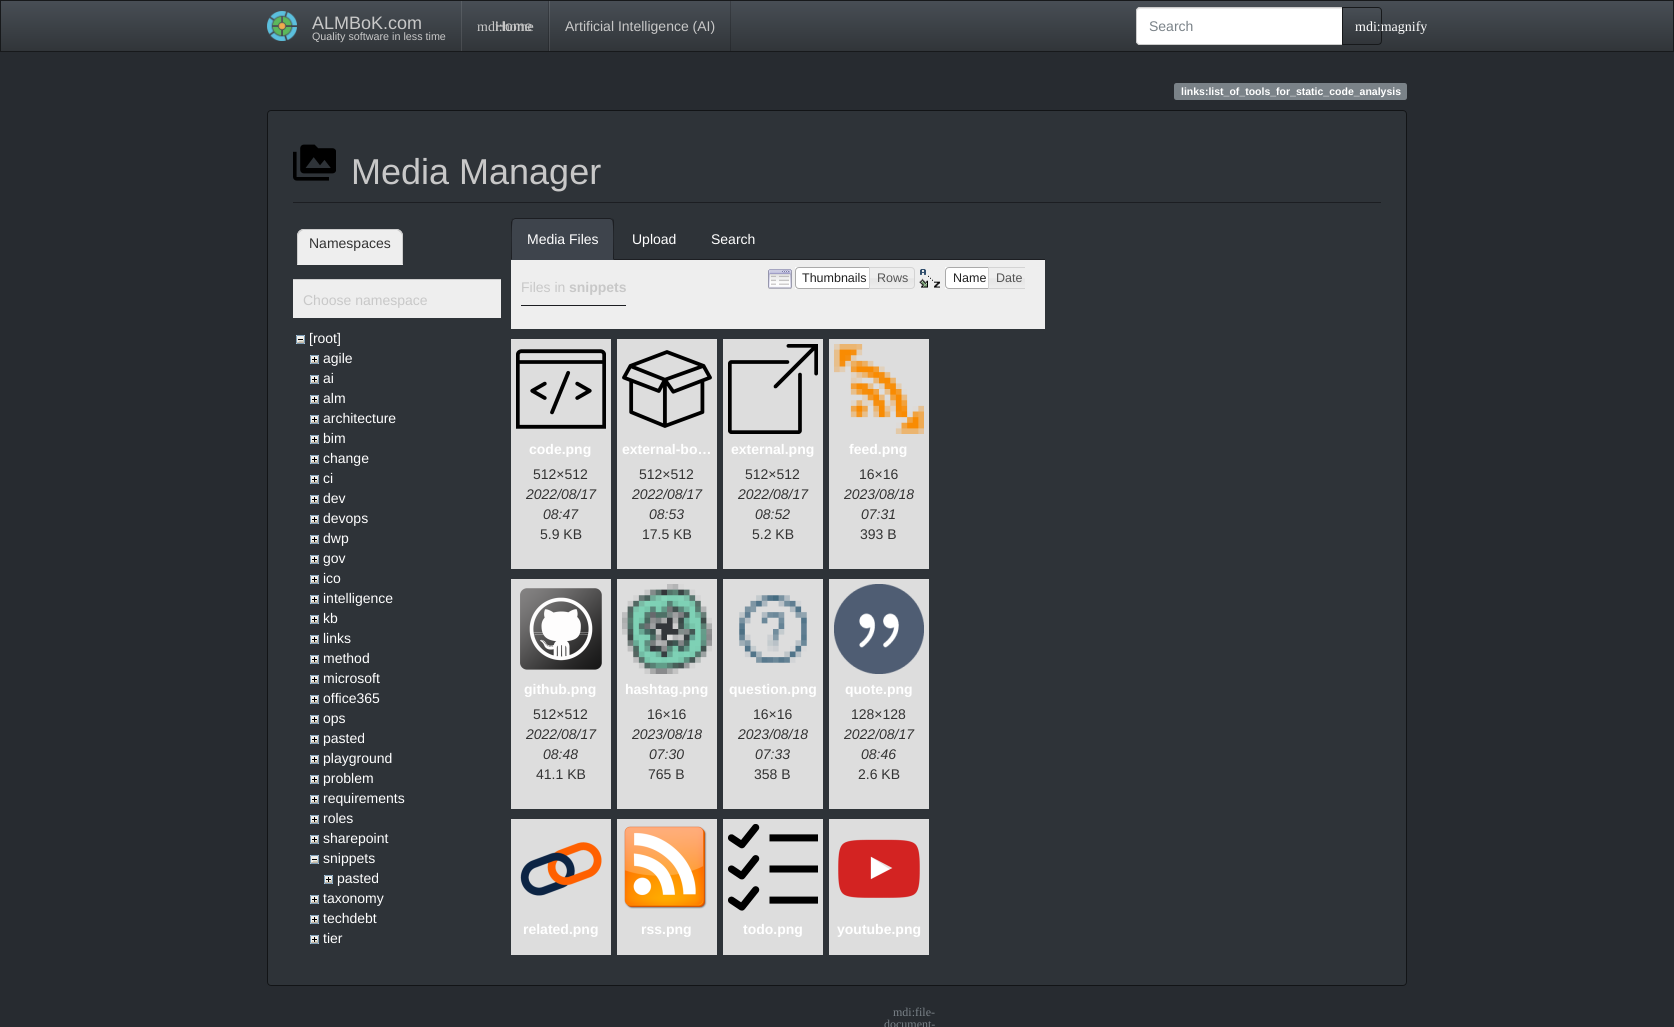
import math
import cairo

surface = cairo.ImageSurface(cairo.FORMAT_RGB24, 1674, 1027)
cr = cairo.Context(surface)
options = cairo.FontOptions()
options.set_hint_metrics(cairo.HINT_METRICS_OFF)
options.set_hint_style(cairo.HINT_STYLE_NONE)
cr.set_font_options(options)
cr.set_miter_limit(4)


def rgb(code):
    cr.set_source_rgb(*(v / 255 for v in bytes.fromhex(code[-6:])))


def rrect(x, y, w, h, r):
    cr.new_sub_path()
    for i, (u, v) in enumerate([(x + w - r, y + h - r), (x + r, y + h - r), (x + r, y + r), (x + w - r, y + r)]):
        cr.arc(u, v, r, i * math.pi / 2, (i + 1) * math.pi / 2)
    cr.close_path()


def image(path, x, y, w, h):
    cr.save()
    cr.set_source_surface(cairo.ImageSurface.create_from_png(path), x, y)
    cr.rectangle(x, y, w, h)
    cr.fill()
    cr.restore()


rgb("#272b30")
cr.paint()
gradient = cairo.LinearGradient(837, 1, 837, 51)
gradient.add_color_stop_rgba(0, 0.282, 0.306, 0.333, 1)
gradient.add_color_stop_rgba(0.6, 0.227, 0.247, 0.267, 1)
gradient.add_color_stop_rgba(1, 0.192, 0.208, 0.224, 1)
cr.set_source(gradient)
cr.rectangle(1, 1, 1672, 50)
cr.fill()
gradient = cairo.LinearGradient(837, 1, 837, 51)
gradient.add_color_stop_rgba(0, 0.353, 0.376, 0.4, 1)
gradient.add_color_stop_rgba(0.6, 0.306, 0.322, 0.341, 1)
gradient.add_color_stop_rgba(1, 0.275, 0.286, 0.302, 1)
cr.set_source(gradient)
cr.rectangle(549, 1, 1, 50)
cr.fill()
gradient = cairo.LinearGradient(837, 1, 837, 51)
gradient.add_color_stop_rgba(0, 0.227, 0.243, 0.267, 1)
gradient.add_color_stop_rgba(0.6, 0.18, 0.196, 0.212, 1)
gradient.add_color_stop_rgba(1, 0.153, 0.165, 0.18, 1)
cr.set_source(gradient)
cr.rectangle(730, 1, 1, 50)
cr.fill()
gradient = cairo.LinearGradient(837, 1, 837, 51)
gradient.add_color_stop_rgba(0, 0.353, 0.376, 0.4, 1)
gradient.add_color_stop_rgba(0.6, 0.306, 0.322, 0.341, 1)
gradient.add_color_stop_rgba(1, 0.275, 0.286, 0.302, 1)
cr.set_source(gradient)
cr.rectangle(461, 1, 1, 50)
cr.fill()
gradient = cairo.LinearGradient(837, 1, 837, 51)
gradient.add_color_stop_rgba(0, 0.227, 0.243, 0.267, 1)
gradient.add_color_stop_rgba(0.6, 0.18, 0.196, 0.212, 1)
gradient.add_color_stop_rgba(1, 0.153, 0.165, 0.18, 1)
cr.set_source(gradient)
cr.rectangle(548, 1, 1, 50)
cr.fill()
cr.rectangle(0.5, 0.5, 1673, 51)
rgb("#17191b")
cr.set_line_width(1)
cr.stroke()
image("img/1.png", 267, 11, 30, 30)
rgb("#ffffff")
cr.new_path()
cr.move_to(1140, 7)
cr.line_to(1343, 7)
cr.line_to(1343, 45)
cr.line_to(1140, 45)
cr.curve_to(1138, 45, 1136, 43, 1136, 41)
cr.line_to(1136, 11)
cr.curve_to(1136, 9, 1138, 7, 1140, 7)
cr.close_path()
cr.fill()
rgb("#ececec")
cr.new_path()
cr.move_to(1140, 9)
cr.line_to(1342, 9)
cr.line_to(1342, 8)
cr.line_to(1139, 8)
cr.curve_to(1137, 9, 1137, 10, 1137, 12)
cr.curve_to(1137, 10, 1138, 9, 1140, 9)
cr.close_path()
cr.fill()
cr.new_path()
cr.move_to(1140, 7.5)
cr.line_to(1342.5, 7.5)
cr.line_to(1342.5, 44.5)
cr.line_to(1140, 44.5)
cr.curve_to(1138, 44.5, 1136.5, 43, 1136.5, 41)
cr.line_to(1136.5, 11)
cr.curve_to(1136.5, 9, 1138, 7.5, 1140, 7.5)
cr.close_path()
rgb("#cccccc")
cr.stroke()
rgb("#3a3f44")
cr.new_path()
cr.move_to(1342, 7)
cr.line_to(1378, 7)
cr.curve_to(1380, 7, 1382, 9, 1382, 11)
cr.line_to(1382, 41)
cr.curve_to(1382, 43, 1380, 45, 1378, 45)
cr.line_to(1342, 45)
cr.close_path()
cr.fill()
gradient = cairo.LinearGradient(1362, 8, 1362, 44)
gradient.add_color_stop_rgba(0, 0.282, 0.306, 0.333, 1)
gradient.add_color_stop_rgba(0.6, 0.227, 0.247, 0.267, 1)
gradient.add_color_stop_rgba(1, 0.192, 0.208, 0.224, 1)
cr.set_source(gradient)
cr.rectangle(1343, 8, 38, 36)
cr.fill()
cr.new_path()
cr.move_to(1342.5, 7.5)
cr.line_to(1378, 7.5)
cr.curve_to(1380, 7.5, 1381.5, 9, 1381.5, 11)
cr.line_to(1381.5, 41)
cr.curve_to(1381.5, 43, 1380, 44.5, 1378, 44.5)
cr.line_to(1342.5, 44.5)
cr.close_path()
cr.set_source_rgba(0, 0, 0, 0.6)
cr.stroke()
rgb("#7a8288")
cr.new_path()
cr.move_to(1176.5, 83)
cr.line_to(1181, 83)
cr.line_to(1181, 100)
cr.line_to(1176.5, 100)
cr.curve_to(1175, 100, 1174, 99, 1174, 97.5)
cr.line_to(1174, 85.5)
cr.curve_to(1174, 84, 1175, 83, 1176.5, 83)
cr.close_path()
cr.fill()
cr.rectangle(1181, 83, 220, 17)
cr.fill()
cr.new_path()
cr.move_to(1401, 83)
cr.line_to(1404.5, 83)
cr.curve_to(1406, 83, 1407, 84, 1407, 85.5)
cr.line_to(1407, 97.5)
cr.curve_to(1407, 99, 1406, 100, 1404.5, 100)
cr.line_to(1401, 100)
cr.close_path()
cr.fill()
rgb("#2e3338")
rrect(267, 110, 1140, 876, 4)
cr.fill()
rrect(267.5, 110.5, 1139, 875, 3.5)
cr.set_source_rgba(0, 0, 0, 0.6)
cr.stroke()
rgb("#1c1e22")
cr.rectangle(293, 202, 1088, 1)
cr.fill()
image("img/2.png", 293, 144, 43, 37)
rgb("#eeeeee")
cr.new_path()
cr.move_to(304, 229)
cr.line_to(396, 229)
cr.curve_to(400, 229, 403, 232, 403, 236)
cr.line_to(403, 265)
cr.line_to(297, 265)
cr.line_to(297, 236)
cr.curve_to(297, 232, 300, 229, 304, 229)
cr.close_path()
cr.fill()
rgb("#cccccc")
cr.new_path()
cr.move_to(304, 229)
cr.curve_to(302, 229, 300, 230, 299, 231)
cr.line_to(300, 232)
cr.line_to(303, 230)
cr.line_to(397, 230)
cr.line_to(400, 232)
cr.line_to(401, 231)
cr.curve_to(400, 230, 398, 229, 396, 229)
cr.close_path()
cr.fill()
cr.new_path()
cr.move_to(403, 265)
cr.line_to(403, 236)
cr.curve_to(403, 234, 402, 232, 401, 231)
cr.line_to(400, 232)
cr.curve_to(401, 233, 402, 234.5, 402, 236)
cr.line_to(402, 264)
cr.close_path()
cr.fill()
rgb("#eeeeee")
cr.new_path()
cr.move_to(403, 265)
cr.line_to(402, 264)
cr.line_to(298, 264)
cr.line_to(297, 265)
cr.close_path()
cr.fill()
rgb("#cccccc")
cr.new_path()
cr.move_to(297, 265)
cr.line_to(298, 264)
cr.line_to(298, 236)
cr.curve_to(298, 234.5, 299, 233, 300, 232)
cr.line_to(299, 231)
cr.curve_to(298, 232, 297, 234, 297, 236)
cr.close_path()
cr.fill()
rgb("#eeeeee")
cr.rectangle(293, 280, 208, 38)
cr.fill()
rgb("#cccccc")
cr.rectangle(293, 279, 208, 1)
cr.fill()
image("img/3.png", 296, 335, 9, 9)
image("img/4.png", 310, 355, 9, 9)
image("img/4.png", 310, 375, 9, 9)
image("img/4.png", 310, 395, 9, 9)
image("img/4.png", 310, 415, 9, 9)
image("img/4.png", 310, 435, 9, 9)
image("img/4.png", 310, 455, 9, 9)
image("img/4.png", 310, 475, 9, 9)
image("img/4.png", 310, 495, 9, 9)
image("img/4.png", 310, 515, 9, 9)
image("img/4.png", 310, 535, 9, 9)
image("img/4.png", 310, 555, 9, 9)
image("img/4.png", 310, 575, 9, 9)
image("img/4.png", 310, 595, 9, 9)
image("img/4.png", 310, 615, 9, 9)
image("img/4.png", 310, 635, 9, 9)
image("img/4.png", 310, 655, 9, 9)
image("img/4.png", 310, 675, 9, 9)
image("img/4.png", 310, 695, 9, 9)
image("img/4.png", 310, 715, 9, 9)
image("img/4.png", 310, 735, 9, 9)
image("img/4.png", 310, 755, 9, 9)
image("img/4.png", 310, 775, 9, 9)
image("img/4.png", 310, 795, 9, 9)
image("img/4.png", 310, 815, 9, 9)
image("img/4.png", 310, 835, 9, 9)
image("img/3.png", 310, 855, 9, 9)
image("img/4.png", 324, 875, 9, 9)
image("img/4.png", 310, 895, 9, 9)
image("img/4.png", 310, 915, 9, 9)
image("img/4.png", 310, 935, 9, 9)
rgb("#1c1e22")
cr.rectangle(614, 259, 431, 1)
cr.fill()
rgb("#3e444c")
cr.new_path()
cr.move_to(515, 218)
cr.line_to(610, 218)
cr.curve_to(612, 218, 614, 220, 614, 222)
cr.line_to(614, 260)
cr.line_to(511, 260)
cr.line_to(511, 222)
cr.curve_to(511, 220, 513, 218, 515, 218)
cr.close_path()
cr.fill()
rgb("#1c1e22")
cr.new_path()
cr.move_to(515, 218)
cr.line_to(512, 219)
cr.line_to(513, 220)
cr.line_to(515, 219)
cr.line_to(610, 219)
cr.line_to(612, 220)
cr.line_to(613, 219)
cr.line_to(610, 218)
cr.close_path()
cr.fill()
cr.new_path()
cr.move_to(614, 260)
cr.line_to(614, 222)
cr.curve_to(614, 221, 614, 220, 613, 219)
cr.line_to(612, 220)
cr.curve_to(614, 222, 613, 254, 613, 259)
cr.close_path()
cr.fill()
cr.new_path()
cr.move_to(511, 260)
cr.line_to(512, 259)
cr.curve_to(512, 254, 511, 222, 513, 220)
cr.line_to(512, 219)
cr.line_to(511, 222)
cr.close_path()
cr.fill()
rgb("#eeeeee")
cr.rectangle(511, 260, 534, 69)
cr.fill()
image("img/5.png", 768, 269, 24, 20)
rgb("#ffffff")
cr.rectangle(795, 267, 74, 22)
cr.fill()
cr.new_path()
cr.move_to(799, 267.5)
cr.line_to(873.5, 267.5)
cr.line_to(873.5, 288.5)
cr.line_to(799, 288.5)
cr.curve_to(797, 288.5, 795.5, 287, 795.5, 285)
cr.line_to(795.5, 271)
cr.curve_to(795.5, 269, 797, 267.5, 799, 267.5)
cr.close_path()
rgb("#aaaaaa")
cr.stroke()
image("img/6.png", 870, 267, 45, 22)
cr.new_path()
cr.move_to(869.5, 267.5)
cr.line_to(911, 267.5)
cr.curve_to(913, 267.5, 914.5, 269, 914.5, 271)
cr.line_to(914.5, 285)
cr.curve_to(914.5, 287, 913, 288.5, 911, 288.5)
cr.line_to(869.5, 288.5)
cr.close_path()
rgb("#d3d3d3")
cr.stroke()
image("img/7.png", 919, 269, 21, 19)
rgb("#ffffff")
cr.rectangle(945, 267, 43, 22)
cr.fill()
cr.new_path()
cr.move_to(949, 267.5)
cr.line_to(992.5, 267.5)
cr.line_to(992.5, 288.5)
cr.line_to(949, 288.5)
cr.curve_to(947, 288.5, 945.5, 287, 945.5, 285)
cr.line_to(945.5, 271)
cr.curve_to(945.5, 269, 947, 267.5, 949, 267.5)
cr.close_path()
rgb("#aaaaaa")
cr.stroke()
image("img/8.png", 989, 268, 36, 20)
cr.save()
cr.rectangle(760, 267, 265, 22)
cr.clip()
cr.new_path()
cr.move_to(988.5, 267.5)
cr.line_to(1026, 267.5)
cr.curve_to(1028, 267.5, 1029.5, 269, 1029.5, 271)
cr.line_to(1029.5, 285)
cr.curve_to(1029.5, 287, 1028, 288.5, 1026, 288.5)
cr.line_to(988.5, 288.5)
cr.close_path()
rgb("#d3d3d3")
cr.stroke()
cr.restore()
rgb("#1c1e22")
cr.rectangle(521, 305, 105, 1)
cr.fill()
rgb("#dddddd")
cr.rectangle(511, 339, 100, 230)
cr.fill()
image("img/9.png", 516, 349, 90, 80)
cr.rectangle(617, 339, 100, 230)
cr.fill()
image("img/10.png", 622, 350, 90, 78)
cr.rectangle(723, 339, 100, 230)
cr.fill()
image("img/11.png", 728, 344, 90, 90)
cr.rectangle(829, 339, 100, 230)
cr.fill()
image("img/12.png", 834, 344, 90, 90)
cr.rectangle(511, 579, 100, 230)
cr.fill()
image("img/13.png", 520, 588, 82, 82)
cr.rectangle(617, 579, 100, 230)
cr.fill()
image("img/14.png", 622, 584, 90, 90)
cr.rectangle(723, 579, 100, 230)
cr.fill()
image("img/15.png", 739, 595, 68, 68)
cr.rectangle(829, 579, 100, 230)
cr.fill()
image("img/16.png", 834, 584, 90, 90)
cr.rectangle(511, 819, 100, 136)
cr.fill()
image("img/17.png", 520, 842, 82, 54)
cr.rectangle(617, 819, 100, 136)
cr.fill()
image("img/18.png", 624, 826, 83, 83)
cr.rectangle(723, 819, 100, 136)
cr.fill()
image("img/19.png", 728, 824, 90, 87)
cr.rectangle(829, 819, 100, 136)
cr.fill()
image("img/20.png", 838, 839, 82, 59)
cr.select_font_face("Liberation Sans")
cr.set_font_size(18)
rgb("#c8c8c8")
cr.move_to(312, 29)
cr.show_text("ALMBoK.com")
cr.set_font_size(10.75)
cr.move_to(312, 40)
cr.show_text("Quality software in less time")
cr.select_font_face("Liberation Serif")
cr.set_font_size(14)
cr.move_to(477, 31)
cr.show_text("mdi:home")
cr.select_font_face("Liberation Sans")
cr.move_to(495, 31)
cr.show_text("Home")
cr.move_to(565, 31)
cr.show_text("Artificial Intelligence (AI)")
rgb("#7a8288")
cr.move_to(1149, 31)
cr.show_text("Search")
cr.select_font_face("Liberation Serif")
rgb("#ffffff")
cr.move_to(1355, 31)
cr.show_text("mdi:magnify")
cr.select_font_face("Liberation Sans", cairo.FONT_SLANT_NORMAL, cairo.FONT_WEIGHT_BOLD)
cr.set_font_size(10.5)
cr.move_to(1181, 95)
cr.show_text("links:list_of_tools_for_static_code_analysis")
cr.select_font_face("Liberation Sans")
cr.set_font_size(36)
rgb("#c8c8c8")
cr.move_to(351, 184)
cr.show_text("Media Manager")
cr.set_font_size(14)
rgb("#333333")
cr.move_to(309, 248)
cr.show_text("Namespaces")
rgb("#c8c8c8")
cr.move_to(303, 305)
cr.show_text("Choose namespace")
rgb("#ffffff")
for x, y, s in [
    (309, 343, "[root]"),
    (323, 363, "agile"),
    (323, 383, "ai"),
    (323, 403, "alm"),
    (323, 423, "architecture"),
    (323, 443, "bim"),
    (323, 463, "change"),
    (323, 483, "ci"),
    (323, 503, "dev"),
    (323, 523, "devops"),
    (323, 543, "dwp"),
    (323, 563, "gov"),
    (323, 583, "ico"),
    (323, 603, "intelligence"),
    (323, 623, "kb"),
    (323, 643, "links"),
    (323, 663, "method"),
    (323, 683, "microsoft"),
    (323, 703, "office365"),
    (323, 723, "ops"),
    (323, 743, "pasted"),
    (323, 763, "playground"),
    (323, 783, "problem"),
    (323, 803, "requirements"),
    (323, 823, "roles"),
    (323, 843, "sharepoint"),
    (323, 863, "snippets"),
    (337, 883, "pasted"),
    (323, 903, "taxonomy"),
    (323, 923, "techdebt"),
    (323, 943, "tier"),
    (527, 244, "Media Files"),
    (632, 244, "Upload"),
    (711, 244, "Search"),
]:
    cr.move_to(x, y)
    cr.show_text(s)
cr.set_font_size(12.5)
rgb("#212121")
cr.move_to(802, 282)
cr.show_text("Thumbnails")
rgb("#555555")
cr.move_to(877, 282)
cr.show_text("Rows")
rgb("#212121")
cr.move_to(953, 282)
cr.show_text("Name")
rgb("#555555")
cr.move_to(996, 282)
cr.show_text("Date")
cr.set_font_size(14)
rgb("#c8c8c8")
cr.move_to(521, 292)
cr.show_text("Files in")
cr.select_font_face("Liberation Sans", cairo.FONT_SLANT_NORMAL, cairo.FONT_WEIGHT_BOLD)
cr.move_to(569, 292)
cr.show_text("snippets")
rgb("#ffffff")
cr.move_to(529, 454)
cr.show_text("code.png")
cr.select_font_face("Liberation Sans")
rgb("#333333")
cr.move_to(533, 479)
cr.show_text("512×512")
cr.select_font_face("Liberation Sans", cairo.FONT_SLANT_ITALIC)
cr.move_to(526, 499)
cr.show_text("2022/08/17")
cr.move_to(543, 519)
cr.show_text("08:47")
cr.select_font_face("Liberation Sans")
cr.move_to(540, 539)
cr.show_text("5.9 KB")
cr.select_font_face("Liberation Sans", cairo.FONT_SLANT_NORMAL, cairo.FONT_WEIGHT_BOLD)
rgb("#ffffff")
cr.move_to(622, 454)
cr.show_text("external-bo…")
cr.select_font_face("Liberation Sans")
rgb("#333333")
cr.move_to(639, 479)
cr.show_text("512×512")
cr.select_font_face("Liberation Sans", cairo.FONT_SLANT_ITALIC)
cr.move_to(632, 499)
cr.show_text("2022/08/17")
cr.move_to(649, 519)
cr.show_text("08:53")
cr.select_font_face("Liberation Sans")
cr.move_to(642, 539)
cr.show_text("17.5 KB")
cr.select_font_face("Liberation Sans", cairo.FONT_SLANT_NORMAL, cairo.FONT_WEIGHT_BOLD)
rgb("#ffffff")
cr.move_to(731, 454)
cr.show_text("external.png")
cr.select_font_face("Liberation Sans")
rgb("#333333")
cr.move_to(745, 479)
cr.show_text("512×512")
cr.select_font_face("Liberation Sans", cairo.FONT_SLANT_ITALIC)
cr.move_to(738, 499)
cr.show_text("2022/08/17")
cr.move_to(755, 519)
cr.show_text("08:52")
cr.select_font_face("Liberation Sans")
cr.move_to(752, 539)
cr.show_text("5.2 KB")
cr.select_font_face("Liberation Sans", cairo.FONT_SLANT_NORMAL, cairo.FONT_WEIGHT_BOLD)
rgb("#ffffff")
cr.move_to(849, 454)
cr.show_text("feed.png")
cr.select_font_face("Liberation Sans")
rgb("#333333")
cr.move_to(859, 479)
cr.show_text("16×16")
cr.select_font_face("Liberation Sans", cairo.FONT_SLANT_ITALIC)
cr.move_to(844, 499)
cr.show_text("2023/08/18")
cr.move_to(861, 519)
cr.show_text("07:31")
cr.select_font_face("Liberation Sans")
cr.move_to(860, 539)
cr.show_text("393 B")
cr.select_font_face("Liberation Sans", cairo.FONT_SLANT_NORMAL, cairo.FONT_WEIGHT_BOLD)
rgb("#ffffff")
cr.move_to(524, 694)
cr.show_text("github.png")
cr.select_font_face("Liberation Sans")
rgb("#333333")
cr.move_to(533, 719)
cr.show_text("512×512")
cr.select_font_face("Liberation Sans", cairo.FONT_SLANT_ITALIC)
cr.move_to(526, 739)
cr.show_text("2022/08/17")
cr.move_to(543, 759)
cr.show_text("08:48")
cr.select_font_face("Liberation Sans")
cr.move_to(536, 779)
cr.show_text("41.1 KB")
cr.select_font_face("Liberation Sans", cairo.FONT_SLANT_NORMAL, cairo.FONT_WEIGHT_BOLD)
rgb("#ffffff")
cr.move_to(625, 694)
cr.show_text("hashtag.png")
cr.select_font_face("Liberation Sans")
rgb("#333333")
cr.move_to(647, 719)
cr.show_text("16×16")
cr.select_font_face("Liberation Sans", cairo.FONT_SLANT_ITALIC)
cr.move_to(632, 739)
cr.show_text("2023/08/18")
cr.move_to(649, 759)
cr.show_text("07:30")
cr.select_font_face("Liberation Sans")
cr.move_to(648, 779)
cr.show_text("765 B")
cr.select_font_face("Liberation Sans", cairo.FONT_SLANT_NORMAL, cairo.FONT_WEIGHT_BOLD)
rgb("#ffffff")
cr.move_to(729, 694)
cr.show_text("question.png")
cr.select_font_face("Liberation Sans")
rgb("#333333")
cr.move_to(753, 719)
cr.show_text("16×16")
cr.select_font_face("Liberation Sans", cairo.FONT_SLANT_ITALIC)
cr.move_to(738, 739)
cr.show_text("2023/08/18")
cr.move_to(755, 759)
cr.show_text("07:33")
cr.select_font_face("Liberation Sans")
cr.move_to(754, 779)
cr.show_text("358 B")
cr.select_font_face("Liberation Sans", cairo.FONT_SLANT_NORMAL, cairo.FONT_WEIGHT_BOLD)
rgb("#ffffff")
cr.move_to(845, 694)
cr.show_text("quote.png")
cr.select_font_face("Liberation Sans")
rgb("#333333")
cr.move_to(851, 719)
cr.show_text("128×128")
cr.select_font_face("Liberation Sans", cairo.FONT_SLANT_ITALIC)
cr.move_to(844, 739)
cr.show_text("2022/08/17")
cr.move_to(861, 759)
cr.show_text("08:46")
cr.select_font_face("Liberation Sans")
cr.move_to(858, 779)
cr.show_text("2.6 KB")
cr.select_font_face("Liberation Sans", cairo.FONT_SLANT_NORMAL, cairo.FONT_WEIGHT_BOLD)
rgb("#ffffff")
for x, y, s in [
    (523, 934, "related.png"),
    (641, 934, "rss.png"),
    (743, 934, "todo.png"),
    (837, 934, "youtube.png"),
]:
    cr.move_to(x, y)
    cr.show_text(s)
cr.select_font_face("Liberation Serif")
cr.set_font_size(12)
rgb("#7a8288")
cr.move_to(893, 1016)
cr.show_text("mdi:file-")
cr.move_to(884, 1028)
cr.show_text("document-")
surface.write_to_png("page.png")
